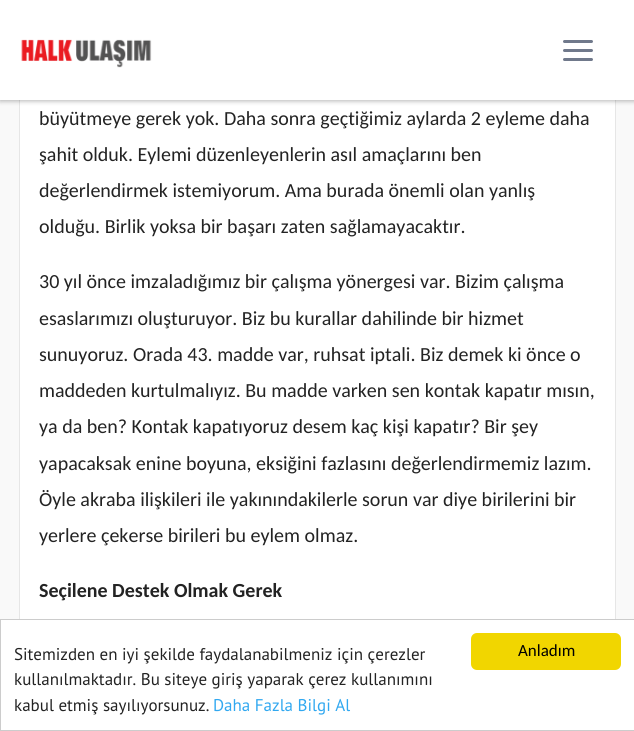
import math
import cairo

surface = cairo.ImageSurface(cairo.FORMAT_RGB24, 634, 731)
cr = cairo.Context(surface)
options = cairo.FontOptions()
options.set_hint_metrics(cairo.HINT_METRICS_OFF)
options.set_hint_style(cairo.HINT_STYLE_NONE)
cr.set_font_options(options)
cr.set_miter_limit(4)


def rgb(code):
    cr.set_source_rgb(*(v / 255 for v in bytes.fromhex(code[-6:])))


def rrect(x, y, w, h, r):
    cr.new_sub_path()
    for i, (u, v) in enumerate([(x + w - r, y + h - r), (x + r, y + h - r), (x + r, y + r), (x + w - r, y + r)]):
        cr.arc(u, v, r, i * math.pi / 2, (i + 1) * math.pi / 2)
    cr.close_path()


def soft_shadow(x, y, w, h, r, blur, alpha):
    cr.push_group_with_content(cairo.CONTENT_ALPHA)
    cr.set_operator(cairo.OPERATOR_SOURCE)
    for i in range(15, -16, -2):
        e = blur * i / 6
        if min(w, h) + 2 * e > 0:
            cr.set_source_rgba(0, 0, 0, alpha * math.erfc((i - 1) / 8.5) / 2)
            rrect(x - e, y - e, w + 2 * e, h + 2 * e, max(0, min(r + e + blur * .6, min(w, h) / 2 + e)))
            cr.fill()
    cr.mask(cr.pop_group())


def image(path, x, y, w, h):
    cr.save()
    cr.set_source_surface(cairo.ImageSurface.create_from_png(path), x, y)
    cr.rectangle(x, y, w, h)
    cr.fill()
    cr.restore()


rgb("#f9f9f9")
cr.paint()
rgb("#ffffff")
cr.rectangle(20, 100, 595, 519)
cr.fill()
cr.rectangle(19.5, -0.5, 596, 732)
rgb("#e6e6e6")
cr.set_line_width(1)
cr.stroke()
rgb("#000000")
soft_shadow(0, 1, 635, 100, 0, 2.5, 0.3)
rgb("#ffffff")
cr.rectangle(0, 0, 634, 100)
cr.fill()
image("img/1.png", 21, 39, 131, 29)
rgb("#70798b")
rrect(563, 58, 30, 3, 1.5)
cr.fill()
rrect(563, 49, 30, 3, 1.5)
cr.fill()
rrect(563, 40, 30, 3, 1.5)
cr.fill()
rgb("#ffffff")
cr.rectangle(0.5, 619.5, 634, 111)
cr.fill_preserve()
rgb("#cccccc")
cr.stroke()
rgb("#f1d600")
rrect(471, 633, 150, 37, 6)
cr.fill()
cr.select_font_face("Carlito")
cr.set_font_size(20)
rgb("#232323")
for x, y, s in [
    (39, 125, "büyütmeye gerek yok. Daha sonra geçtiğimiz aylarda 2 eyleme daha"),
    (39, 161, "şahit olduk. Eylemi düzenleyenlerin asıl amaçlarını ben"),
    (39, 197, "değerlendirmek istemiyorum. Ama burada önemli olan yanlış"),
    (39, 233, "olduğu. Birlik yoksa bir başarı zaten sağlamayacaktır."),
    (39, 288, "30 yıl önce imzaladığımız bir çalışma yönergesi var. Bizim çalışma"),
    (39, 325, "esaslarımızı oluşturuyor. Biz bu kurallar dahilinde bir hizmet"),
    (39, 361, "sunuyoruz. Orada 43. madde var, ruhsat iptali. Biz demek ki önce o"),
    (39, 397, "maddeden kurtulmalıyız. Bu madde varken sen kontak kapatır mısın,"),
    (39, 433, "ya da ben? Kontak kapatıyoruz desem kaç kişi kapatır? Bir şey"),
    (39, 470, "yapacaksak enine boyuna, eksiğini fazlasını değerlendirmemiz lazım."),
    (39, 506, "Öyle akraba ilişkileri ile yakınındakilerle sorun var diye birilerini bir"),
    (39, 542, "yerlere çekerse birileri bu eylem olmaz."),
]:
    cr.move_to(x, y)
    cr.show_text(s)
cr.select_font_face("Carlito", cairo.FONT_SLANT_NORMAL, cairo.FONT_WEIGHT_BOLD)
cr.move_to(39, 597)
cr.show_text("Seçilene Destek Olmak Gerek")
cr.select_font_face("PT Sans")
cr.set_font_size(17)
for x, y, s in [
    (14, 660, "Sitemizden en iyi şekilde faydalanabilmeniz için çerezler"),
    (14, 685, "kullanılmaktadır. Bu siteye giriş yaparak çerez kullanımını"),
    (14, 711, "kabul etmiş sayılıyorsunuz."),
]:
    cr.move_to(x, y)
    cr.show_text(s)
rgb("#31a8f0")
cr.move_to(213, 711)
cr.show_text("Daha Fazla Bilgi Al")
cr.select_font_face("Carlito")
rgb("#000000")
cr.move_to(518, 656)
cr.show_text("Anladım")
surface.write_to_png("page.png")
